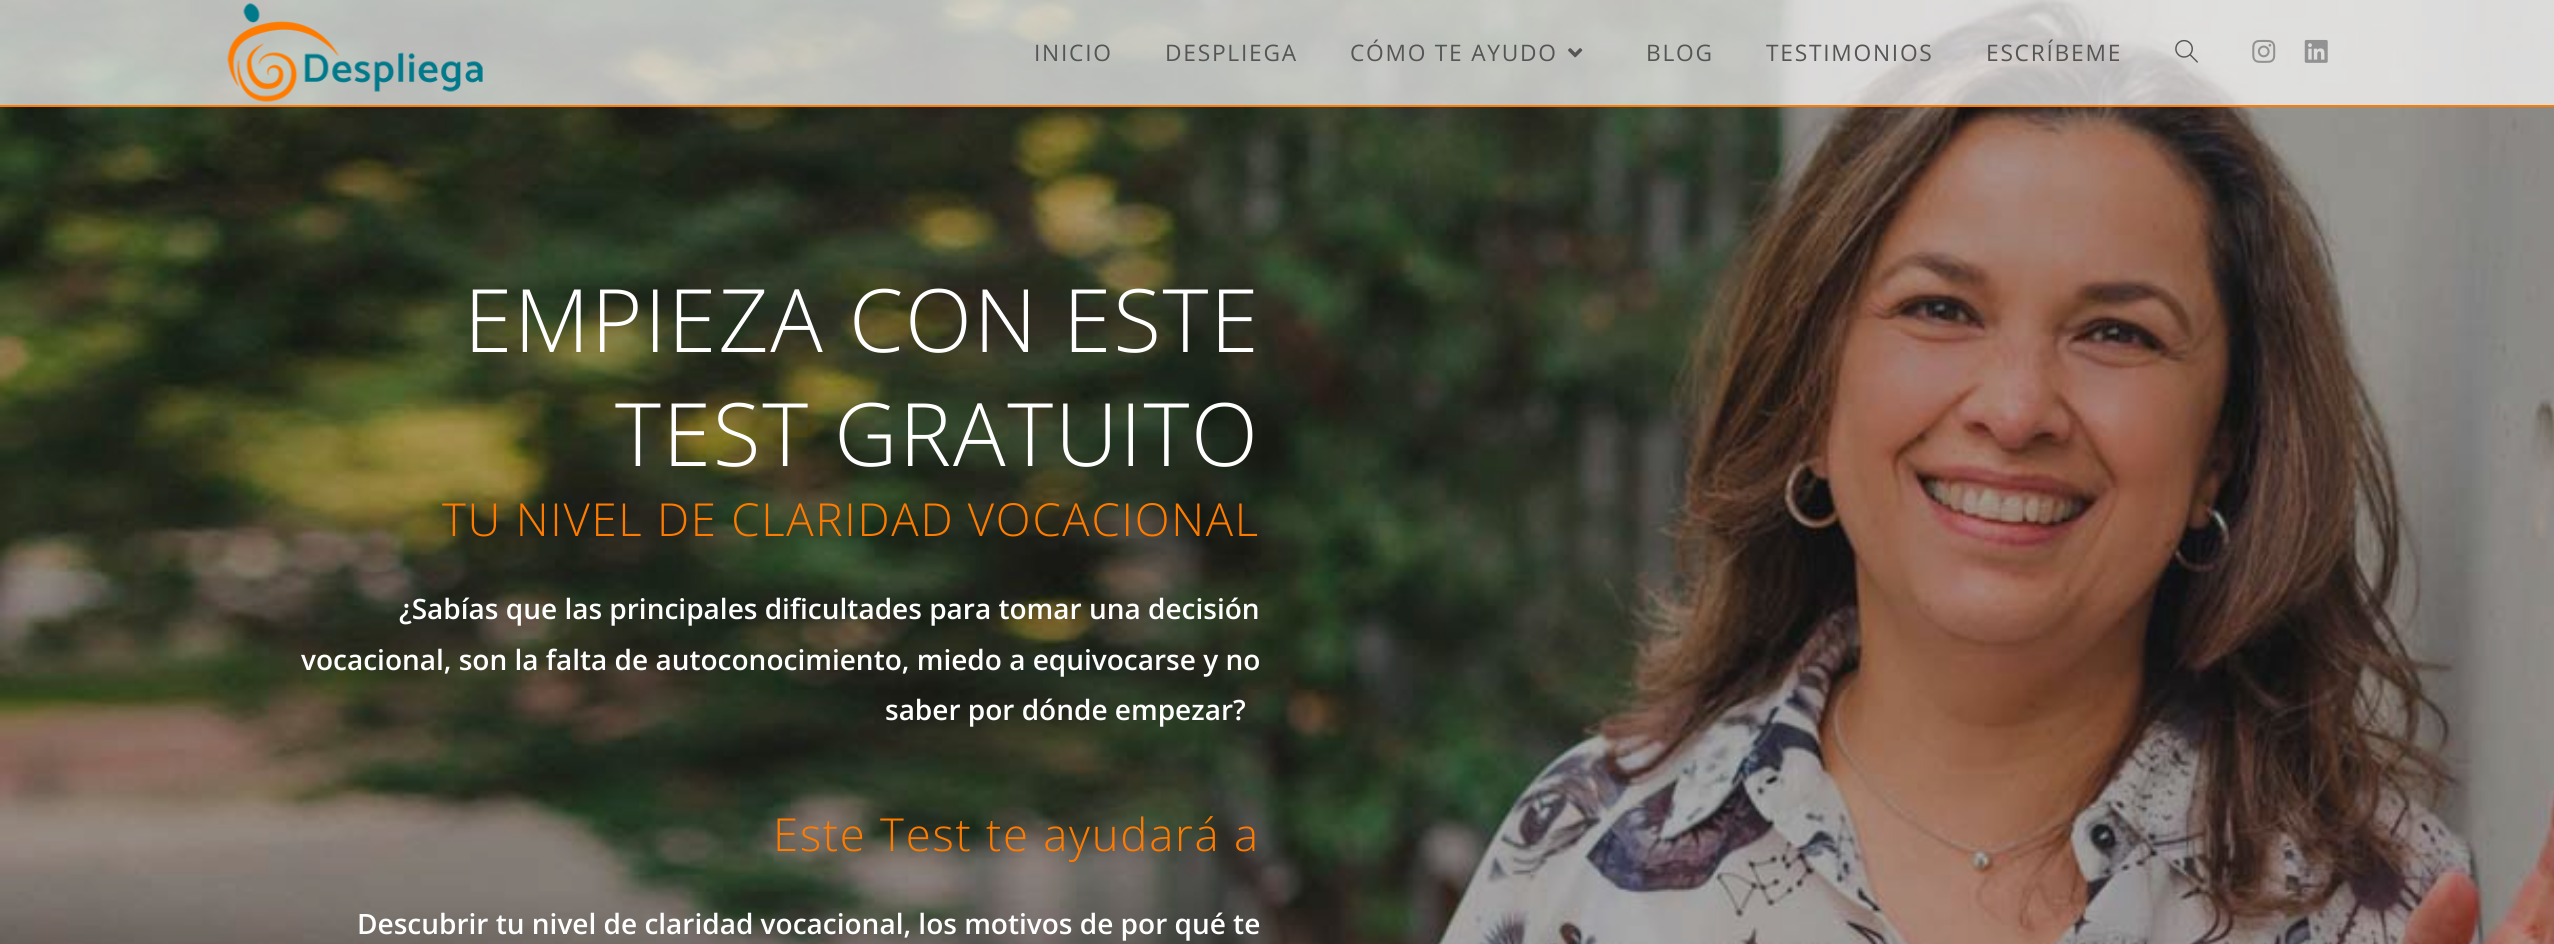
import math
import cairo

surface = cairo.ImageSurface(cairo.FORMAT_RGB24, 2554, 944)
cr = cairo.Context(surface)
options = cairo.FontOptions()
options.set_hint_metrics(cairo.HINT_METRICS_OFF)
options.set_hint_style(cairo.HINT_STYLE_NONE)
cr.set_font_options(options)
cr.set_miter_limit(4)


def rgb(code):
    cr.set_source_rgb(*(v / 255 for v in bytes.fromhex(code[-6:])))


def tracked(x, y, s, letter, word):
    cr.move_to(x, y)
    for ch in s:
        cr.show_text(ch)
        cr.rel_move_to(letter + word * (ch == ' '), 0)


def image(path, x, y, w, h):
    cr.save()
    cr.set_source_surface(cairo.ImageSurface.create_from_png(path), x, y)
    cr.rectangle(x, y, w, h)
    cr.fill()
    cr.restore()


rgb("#ffffff")
cr.paint()
image("img/6.png", 0, 0, 2554, 944)
cr.set_source_rgba(1, 1, 1, 0.7)
cr.rectangle(0, 0, 2554, 105)
cr.fill()
rgb("#ff7a01")
cr.rectangle(0, 105, 2554, 2)
cr.fill()
image("img/1.png", 227, 3, 256, 99)
image("img/2.png", 1568, 48, 15, 10)
image("img/3.png", 2175, 39, 23, 24)
image("img/4.png", 2252, 39, 24, 24)
image("img/5.png", 2304, 39, 24, 24)
cr.select_font_face("Open Sans")
cr.set_font_size(22.75)
rgb("#555555")
for x, y, s in [
    (1034, 61, "INICIO"),
    (1165, 61, "DESPLIEGA"),
    (1350, 61, "CÓMO TE AYUDO"),
    (1646, 61, "BLOG"),
    (1766, 61, "TESTIMONIOS"),
    (1986, 61, "ESCRÍBEME"),
]:
    tracked(x, y, s, 1.75, 0)
cr.select_font_face("Open Sans Light")
cr.set_font_size(87.5)
rgb("#ffffff")
tracked(464, 352, "EMPIEZA CON ESTE", 1.75, 0)
tracked(615, 466, "TEST GRATUITO", 1.75, 0)
cr.set_font_size(45.5)
rgb("#ff7b00")
tracked(442, 536, "TU NIVEL DE CLARIDAD VOCACIONAL", 1.75, 0)
cr.select_font_face("Open Sans SemiBold")
cr.set_font_size(28)
rgb("#ffffff")
for x, y, s in [
    (399, 619, "¿Sabías que las principales dificultades para tomar una decisión"),
    (301, 670, "vocacional, son la falta de autoconocimiento, miedo a equivocarse y no"),
    (885, 720, "saber por dónde empezar?"),
]:
    cr.move_to(x, y)
    cr.show_text(s)
cr.select_font_face("Open Sans Light")
cr.set_font_size(45.5)
rgb("#ff7b00")
tracked(773, 851, "Este Test te ayudará a", 1.75, 0)
cr.select_font_face("Open Sans SemiBold")
cr.set_font_size(28)
rgb("#ffffff")
cr.move_to(357, 934)
cr.show_text("Descubrir tu nivel de claridad vocacional, los motivos de por qué te")
surface.write_to_png("page.png")
